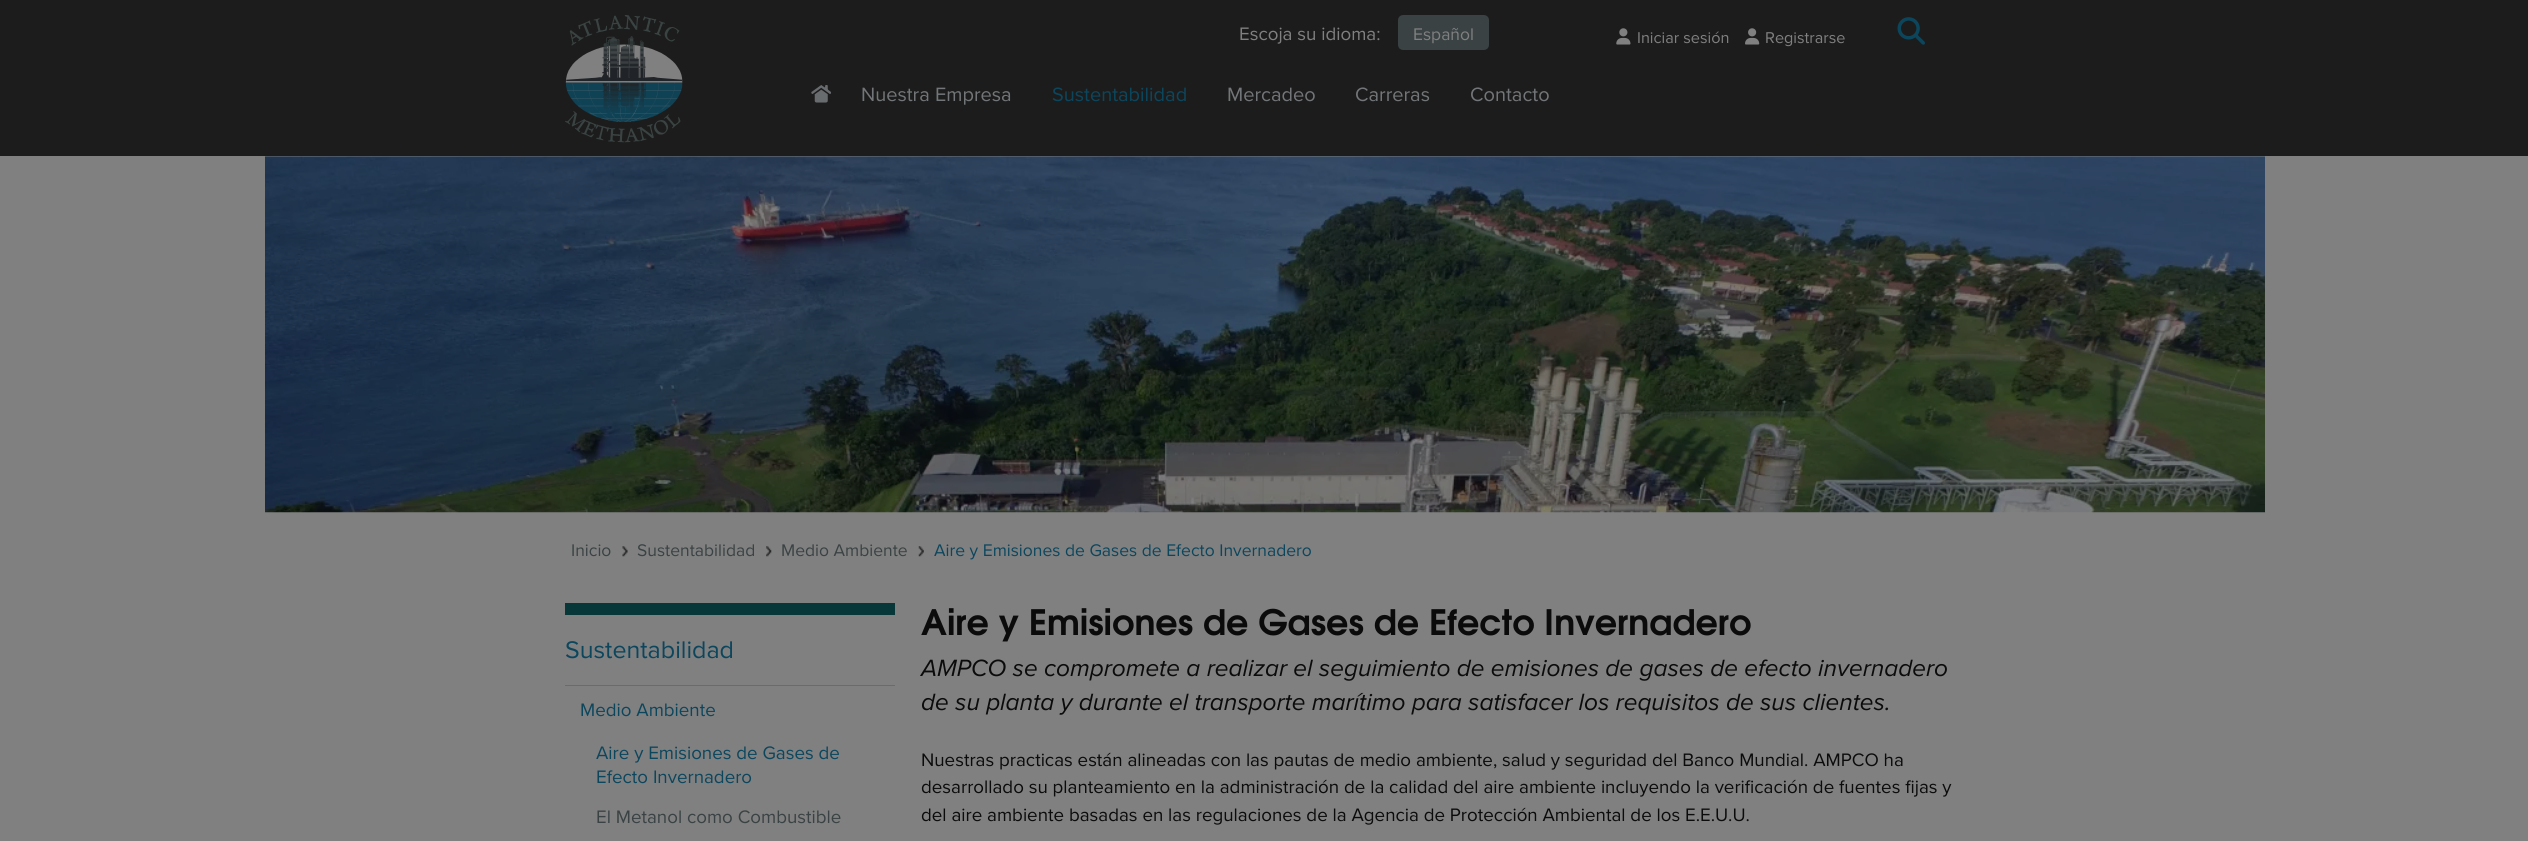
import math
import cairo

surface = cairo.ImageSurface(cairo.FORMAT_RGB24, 2528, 841)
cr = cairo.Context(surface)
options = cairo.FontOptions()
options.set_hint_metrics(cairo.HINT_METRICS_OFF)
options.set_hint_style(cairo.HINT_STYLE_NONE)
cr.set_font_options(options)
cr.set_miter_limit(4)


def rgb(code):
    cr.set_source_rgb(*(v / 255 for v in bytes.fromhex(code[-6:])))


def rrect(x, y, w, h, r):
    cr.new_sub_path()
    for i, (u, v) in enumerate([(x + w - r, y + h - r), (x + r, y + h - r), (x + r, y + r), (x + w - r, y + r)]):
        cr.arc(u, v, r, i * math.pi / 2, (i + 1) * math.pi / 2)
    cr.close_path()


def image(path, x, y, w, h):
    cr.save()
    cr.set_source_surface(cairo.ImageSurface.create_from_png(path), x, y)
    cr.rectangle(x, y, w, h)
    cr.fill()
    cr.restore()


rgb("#808080")
cr.paint()
rgb("#1c1c1c")
cr.rectangle(0, 0, 2528, 156)
cr.fill()
image("img/1.png", 565, 15, 118, 128)
rgb("#3a4243")
rrect(1399.5, 16.5, 88, 32, 3.5)
cr.fill_preserve()
cr.set_line_width(3)
cr.stroke()
image("img/2.png", 1616, 28, 15, 17)
image("img/3.png", 1745, 28, 15, 17)
image("img/4.png", 1897, 17, 28, 28)
image("img/5.png", 811, 85, 20, 18)
image("img/6.png", 265, 156, 2000, 357)
image("img/7.png", 622, 546, 6, 11)
image("img/8.png", 766, 546, 6, 11)
image("img/9.png", 918, 546, 6, 11)
rgb("#083739")
cr.rectangle(565, 603, 330, 12)
cr.fill()
rgb("#696c6e")
cr.rectangle(565, 685, 330, 1)
cr.fill()
cr.select_font_face("Proxima Nova")
cr.set_font_size(18.75)
rgb("#808080")
cr.move_to(1239, 40)
cr.show_text("Escoja su idioma:")
cr.set_font_size(17.5)
cr.move_to(1413, 40)
cr.show_text("Español")
cr.set_font_size(16.25)
cr.move_to(1637, 43)
cr.show_text("Iniciar sesión")
cr.move_to(1765, 43)
cr.show_text("Registrarse")
cr.set_font_size(20)
rgb("#737678")
cr.move_to(861, 101)
cr.show_text("Nuestra Empresa")
rgb("#0c465d")
cr.move_to(1052, 101)
cr.show_text("Sustentabilidad")
rgb("#737678")
for x, y, s in [
    (1227, 101, "Mercadeo"),
    (1355, 101, "Carreras"),
    (1470, 101, "Contacto"),
]:
    cr.move_to(x, y)
    cr.show_text(s)
cr.set_font_size(17.5)
rgb("#3a4243")
for x, y, s in [
    (571, 556, "Inicio"),
    (637, 556, "Sustentabilidad"),
    (781, 556, "Medio Ambiente"),
]:
    cr.move_to(x, y)
    cr.show_text(s)
rgb("#0c465d")
cr.move_to(934, 556)
cr.show_text("Aire y Emisiones de Gases de Efecto Invernadero")
cr.set_font_size(25)
cr.move_to(565, 658)
cr.show_text("Sustentabilidad")
cr.set_font_size(18.75)
for x, y, s in [
    (580, 716, "Medio Ambiente"),
    (596, 759, "Aire y Emisiones de Gases de"),
    (596, 783, "Efecto Invernadero"),
]:
    cr.move_to(x, y)
    cr.show_text(s)
rgb("#3a4243")
cr.move_to(596, 823)
cr.show_text("El Metanol como Combustible")
cr.select_font_face("TeX Gyre Adventor", cairo.FONT_SLANT_NORMAL, cairo.FONT_WEIGHT_BOLD)
cr.set_font_size(35)
rgb("#0b0b0b")
cr.move_to(921, 635)
cr.show_text("Aire y Emisiones de Gases de Efecto Invernadero")
cr.select_font_face("Proxima Nova", cairo.FONT_SLANT_ITALIC)
cr.set_font_size(24.4)
cr.move_to(921, 676)
cr.show_text("AMPCO se compromete a realizar el seguimiento de emisiones de gases de efecto invernadero")
cr.move_to(921, 710)
cr.show_text("de su planta y durante el transporte marítimo para satisfacer los requisitos de sus clientes.")
cr.select_font_face("Proxima Nova")
cr.set_font_size(18.75)
for x, y, s in [
    (921, 766, "Nuestras practicas están alineadas con las pautas de medio ambiente, salud y seguridad del Banco Mundial. AMPCO ha"),
    (921, 793, "desarrollado su planteamiento en la administración de la calidad del aire ambiente incluyendo la verificación de fuentes fijas y"),
    (921, 821, "del aire ambiente basadas en las regulaciones de la Agencia de Protección Ambiental de los E.E.U.U."),
]:
    cr.move_to(x, y)
    cr.show_text(s)
surface.write_to_png("page.png")
